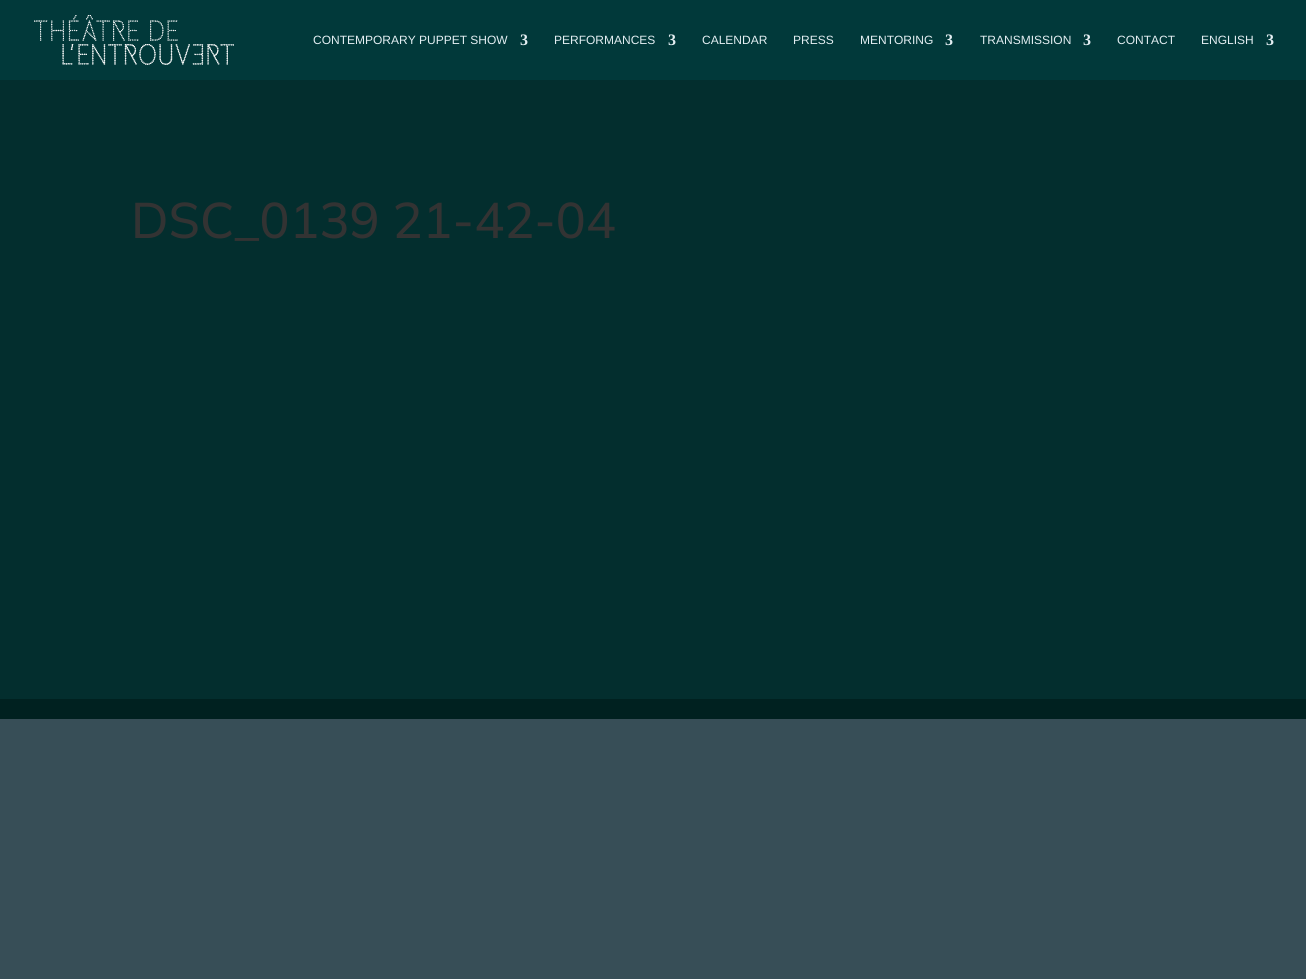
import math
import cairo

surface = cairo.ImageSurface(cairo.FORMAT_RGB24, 1306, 979)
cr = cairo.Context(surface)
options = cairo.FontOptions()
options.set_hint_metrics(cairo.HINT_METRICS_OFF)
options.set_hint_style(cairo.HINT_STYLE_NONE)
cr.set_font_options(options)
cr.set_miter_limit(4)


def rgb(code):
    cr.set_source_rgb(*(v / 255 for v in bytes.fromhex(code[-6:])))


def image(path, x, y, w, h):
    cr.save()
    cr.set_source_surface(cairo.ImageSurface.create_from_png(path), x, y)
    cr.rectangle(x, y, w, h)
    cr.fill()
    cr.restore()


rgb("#374e57")
cr.paint()
rgb("#01393a")
cr.rectangle(0, 0, 1306, 80)
cr.fill()
image("img/1.png", 34, 15, 200, 50)
rgb("#032e2e")
cr.rectangle(0, 80, 1306, 619)
cr.fill()
rgb("#002120")
cr.rectangle(0, 699, 1306, 20)
cr.fill()
cr.select_font_face("Liberation Sans")
cr.set_font_size(12)
rgb("#e3eef2")
cr.move_to(313, 44)
cr.show_text("CONTEMPORARY PUPPET SHOW")
cr.select_font_face("Liberation Serif", cairo.FONT_SLANT_NORMAL, cairo.FONT_WEIGHT_BOLD)
cr.set_font_size(16)
cr.move_to(520, 45)
cr.show_text("3")
cr.select_font_face("Liberation Sans")
cr.set_font_size(12)
cr.move_to(554, 44)
cr.show_text("PERFORMANCES")
cr.select_font_face("Liberation Serif", cairo.FONT_SLANT_NORMAL, cairo.FONT_WEIGHT_BOLD)
cr.set_font_size(16)
cr.move_to(668, 45)
cr.show_text("3")
cr.select_font_face("Liberation Sans")
cr.set_font_size(12)
for x, y, s in [
    (702, 44, "CALENDAR"),
    (793, 44, "PRESS"),
    (860, 44, "MENTORING"),
]:
    cr.move_to(x, y)
    cr.show_text(s)
cr.select_font_face("Liberation Serif", cairo.FONT_SLANT_NORMAL, cairo.FONT_WEIGHT_BOLD)
cr.set_font_size(16)
cr.move_to(945, 45)
cr.show_text("3")
cr.select_font_face("Liberation Sans")
cr.set_font_size(12)
cr.move_to(980, 44)
cr.show_text("TRANSMISSION")
cr.select_font_face("Liberation Serif", cairo.FONT_SLANT_NORMAL, cairo.FONT_WEIGHT_BOLD)
cr.set_font_size(16)
cr.move_to(1083, 45)
cr.show_text("3")
cr.select_font_face("Liberation Sans")
cr.set_font_size(12)
cr.move_to(1117, 44)
cr.show_text("CONTACT")
cr.move_to(1201, 44)
cr.show_text("ENGLISH")
cr.select_font_face("Liberation Serif", cairo.FONT_SLANT_NORMAL, cairo.FONT_WEIGHT_BOLD)
cr.set_font_size(16)
cr.move_to(1266, 45)
cr.show_text("3")
cr.select_font_face("Mulish Medium")
cr.set_font_size(50)
rgb("#333333")
cr.move_to(131, 238)
cr.show_text("DSC_0139 21-42-04")
surface.write_to_png("page.png")
